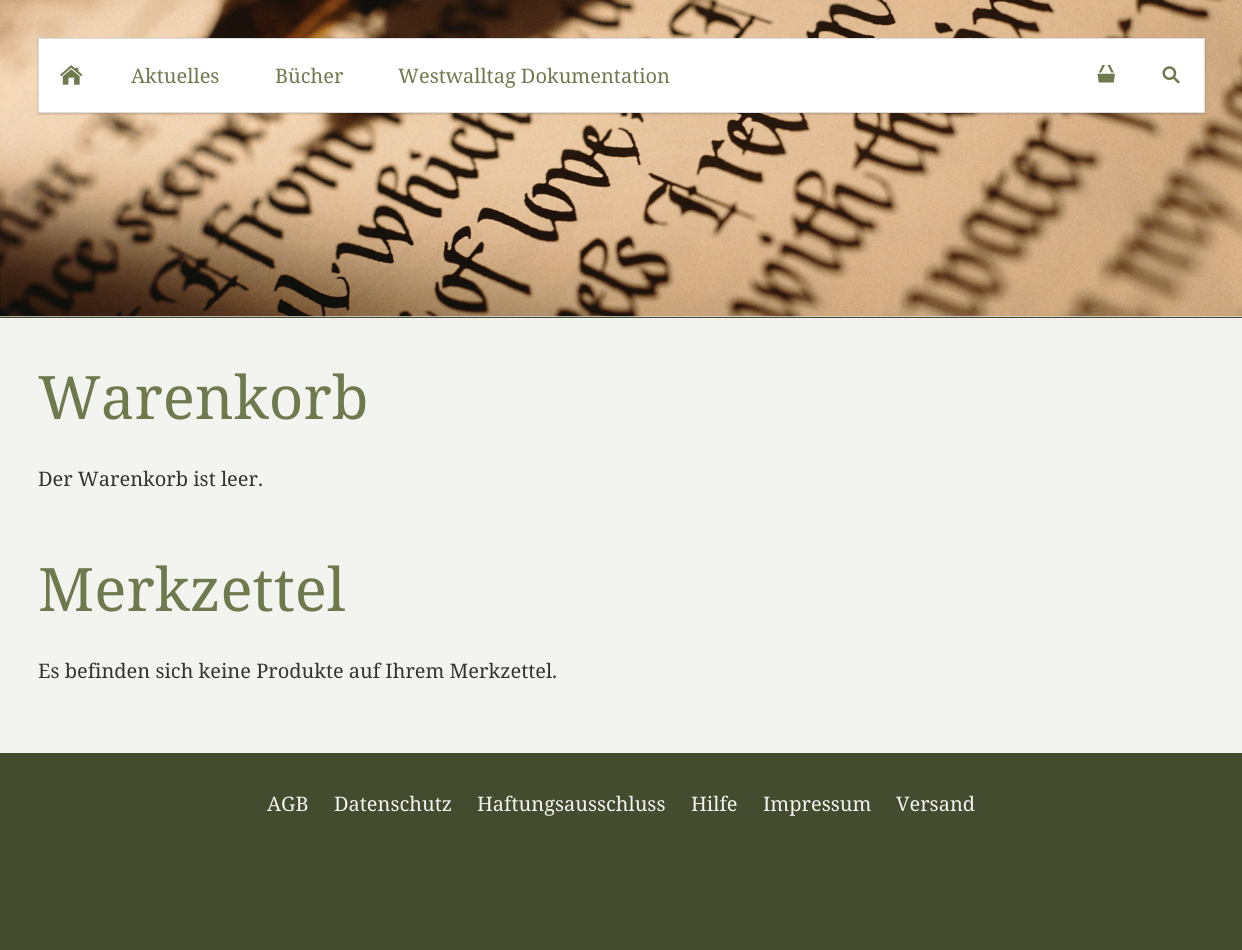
import math
import cairo

surface = cairo.ImageSurface(cairo.FORMAT_RGB24, 1242, 950)
cr = cairo.Context(surface)
options = cairo.FontOptions()
options.set_hint_metrics(cairo.HINT_METRICS_OFF)
options.set_hint_style(cairo.HINT_STYLE_NONE)
cr.set_font_options(options)
cr.set_miter_limit(4)


def rgb(code):
    cr.set_source_rgb(*(v / 255 for v in bytes.fromhex(code[-6:])))


def rrect(x, y, w, h, r):
    cr.new_sub_path()
    for i, (u, v) in enumerate([(x + w - r, y + h - r), (x + r, y + h - r), (x + r, y + r), (x + w - r, y + r)]):
        cr.arc(u, v, r, i * math.pi / 2, (i + 1) * math.pi / 2)
    cr.close_path()


def soft_shadow(x, y, w, h, r, blur, alpha):
    cr.push_group_with_content(cairo.CONTENT_ALPHA)
    cr.set_operator(cairo.OPERATOR_SOURCE)
    for i in range(15, -16, -2):
        e = blur * i / 6
        if min(w, h) + 2 * e > 0:
            cr.set_source_rgba(0, 0, 0, alpha * math.erfc((i - 1) / 8.5) / 2)
            rrect(x - e, y - e, w + 2 * e, h + 2 * e, max(0, min(r + e + blur * .6, min(w, h) / 2 + e)))
            cr.fill()
    cr.mask(cr.pop_group())


def image(path, x, y, w, h):
    cr.save()
    cr.set_source_surface(cairo.ImageSurface.create_from_png(path), x, y)
    cr.rectangle(x, y, w, h)
    cr.fill()
    cr.restore()


rgb("#444c30")
cr.paint()
rgb("#dddddd")
cr.rectangle(0, 316, 1242, 1)
cr.fill()
image("img/1.png", 0, 0, 1242, 317)
rgb("#000000")
soft_shadow(38, 39, 1167, 75, 0, 1, 0.2)
rgb("#ffffff")
cr.rectangle(38.5, 38.5, 1166, 74)
cr.fill_preserve()
rgb("#dddddd")
cr.set_line_width(1)
cr.stroke()
image("img/2.png", 60, 65, 23, 20)
image("img/3.png", 1097, 65, 18, 18)
image("img/4.png", 1162, 66, 18, 18)
rgb("#f3f4ef")
cr.rectangle(0, 318, 1242, 435)
cr.fill()
cr.select_font_face("Noto Serif")
cr.set_font_size(20)
rgb("#6e7a4e")
for x, y, s in [
    (131, 83, "Aktuelles"),
    (275, 83, "Bücher"),
    (398, 83, "Westwalltag Dokumentation"),
]:
    cr.move_to(x, y)
    cr.show_text(s)
cr.set_font_size(60)
cr.move_to(38, 419)
cr.show_text("Warenkorb")
cr.set_font_size(20)
rgb("#333333")
cr.move_to(38, 486)
cr.show_text("Der Warenkorb ist leer.")
cr.set_font_size(60)
rgb("#6e7a4e")
cr.move_to(38, 611)
cr.show_text("Merkzettel")
cr.set_font_size(20)
rgb("#333333")
cr.move_to(38, 678)
cr.show_text("Es befinden sich keine Produkte auf Ihrem Merkzettel.")
rgb("#f3f4ef")
for x, y, s in [
    (267, 811, "AGB"),
    (334, 811, "Datenschutz"),
    (477, 811, "Haftungsausschluss"),
    (691, 811, "Hilfe"),
    (763, 811, "Impressum"),
    (896, 811, "Versand"),
]:
    cr.move_to(x, y)
    cr.show_text(s)
surface.write_to_png("page.png")
